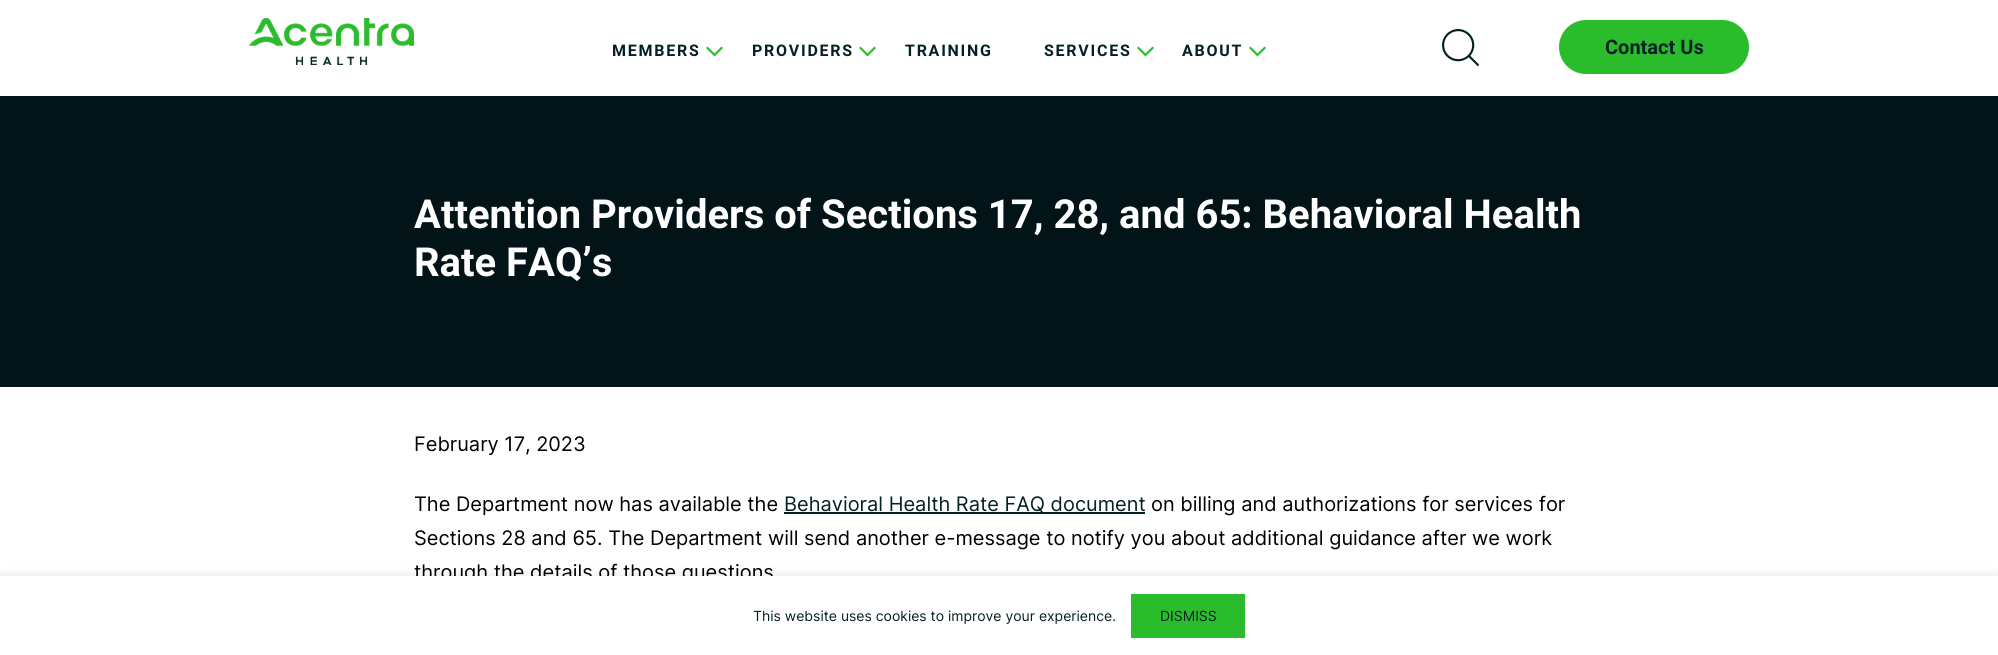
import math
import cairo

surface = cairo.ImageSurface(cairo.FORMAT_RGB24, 1998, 655)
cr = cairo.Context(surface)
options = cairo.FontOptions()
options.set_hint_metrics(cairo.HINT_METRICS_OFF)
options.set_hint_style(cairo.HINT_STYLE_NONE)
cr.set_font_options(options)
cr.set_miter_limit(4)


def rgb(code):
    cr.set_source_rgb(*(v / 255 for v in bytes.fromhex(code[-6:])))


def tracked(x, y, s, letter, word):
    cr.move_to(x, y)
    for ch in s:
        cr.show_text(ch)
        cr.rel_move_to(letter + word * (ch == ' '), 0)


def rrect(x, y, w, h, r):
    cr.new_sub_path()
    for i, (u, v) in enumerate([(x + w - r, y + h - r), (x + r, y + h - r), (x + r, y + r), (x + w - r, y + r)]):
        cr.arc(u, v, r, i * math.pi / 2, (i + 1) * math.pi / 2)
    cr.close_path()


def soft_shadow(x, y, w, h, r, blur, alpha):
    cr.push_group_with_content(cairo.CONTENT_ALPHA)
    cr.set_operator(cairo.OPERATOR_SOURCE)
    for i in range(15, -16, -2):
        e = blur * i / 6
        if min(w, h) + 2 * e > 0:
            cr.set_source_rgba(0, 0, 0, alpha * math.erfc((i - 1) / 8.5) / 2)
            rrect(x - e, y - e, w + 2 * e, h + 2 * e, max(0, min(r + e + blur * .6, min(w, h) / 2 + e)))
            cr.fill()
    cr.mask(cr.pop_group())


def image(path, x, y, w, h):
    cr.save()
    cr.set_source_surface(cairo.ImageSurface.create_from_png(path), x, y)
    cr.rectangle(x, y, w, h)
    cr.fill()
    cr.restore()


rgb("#ffffff")
cr.paint()
image("img/1.png", 249, 18, 165, 47)
image("img/2.png", 706, 46, 17, 11)
image("img/2.png", 859, 46, 17, 11)
image("img/2.png", 1137, 46, 17, 11)
image("img/2.png", 1249, 46, 17, 11)
image("img/3.png", 1442, 29, 37, 37)
rgb("#2bbc2b")
rrect(1559, 20, 190, 54, 27)
cr.fill()
rgb("#021417")
cr.rectangle(0, 96, 1998, 291)
cr.fill()
rgb("#042126")
cr.rectangle(784, 512, 361, 2)
cr.fill()
rgb("#acabab")
soft_shadow(0, 575, 1998, 79, 0, 5, 0.3)
cr.select_font_face("Roboto", cairo.FONT_SLANT_NORMAL, cairo.FONT_WEIGHT_BOLD)
cr.set_font_size(16)
rgb("#042126")
for x, y, s in [
    (612, 56, "MEMBERS"),
    (752, 56, "PROVIDERS"),
    (905, 56, "TRAINING"),
    (1044, 56, "SERVICES"),
    (1182, 56, "ABOUT"),
]:
    tracked(x, y, s, 1.75, 0)
cr.set_font_size(20)
cr.move_to(1605, 54)
cr.show_text("Contact Us")
cr.set_font_size(40)
rgb("#ffffff")
cr.move_to(414, 228)
cr.show_text("Attention Providers of Sections 17, 28, and 65: Behavioral Health")
cr.move_to(414, 276)
cr.show_text("Rate FAQ’s")
cr.select_font_face("Inter")
cr.set_font_size(20)
rgb("#000000")
cr.move_to(414, 451)
cr.show_text("February 17, 2023")
cr.move_to(414, 511)
cr.show_text("The Department now has available the")
rgb("#042126")
cr.move_to(784, 511)
cr.show_text("Behavioral Health Rate FAQ document")
rgb("#000000")
for x, y, s in [
    (1151, 511, "on billing and authorizations for services for"),
    (414, 545, "Sections 28 and 65. The Department will send another e-message to notify you about additional guidance after we work"),
    (414, 579, "through the details of those questions"),
]:
    cr.move_to(x, y)
    cr.show_text(s)
rgb("#ffffff")
cr.rectangle(0, 576, 1998, 79)
cr.fill()
cr.set_font_size(14)
rgb("#042126")
cr.move_to(753, 621)
cr.show_text("This website uses cookies to improve your experience.")
rgb("#2bbc2b")
cr.rectangle(1131, 594, 114, 44)
cr.fill()
rgb("#042126")
cr.move_to(1160, 621)
cr.show_text("DISMISS")
surface.write_to_png("page.png")
